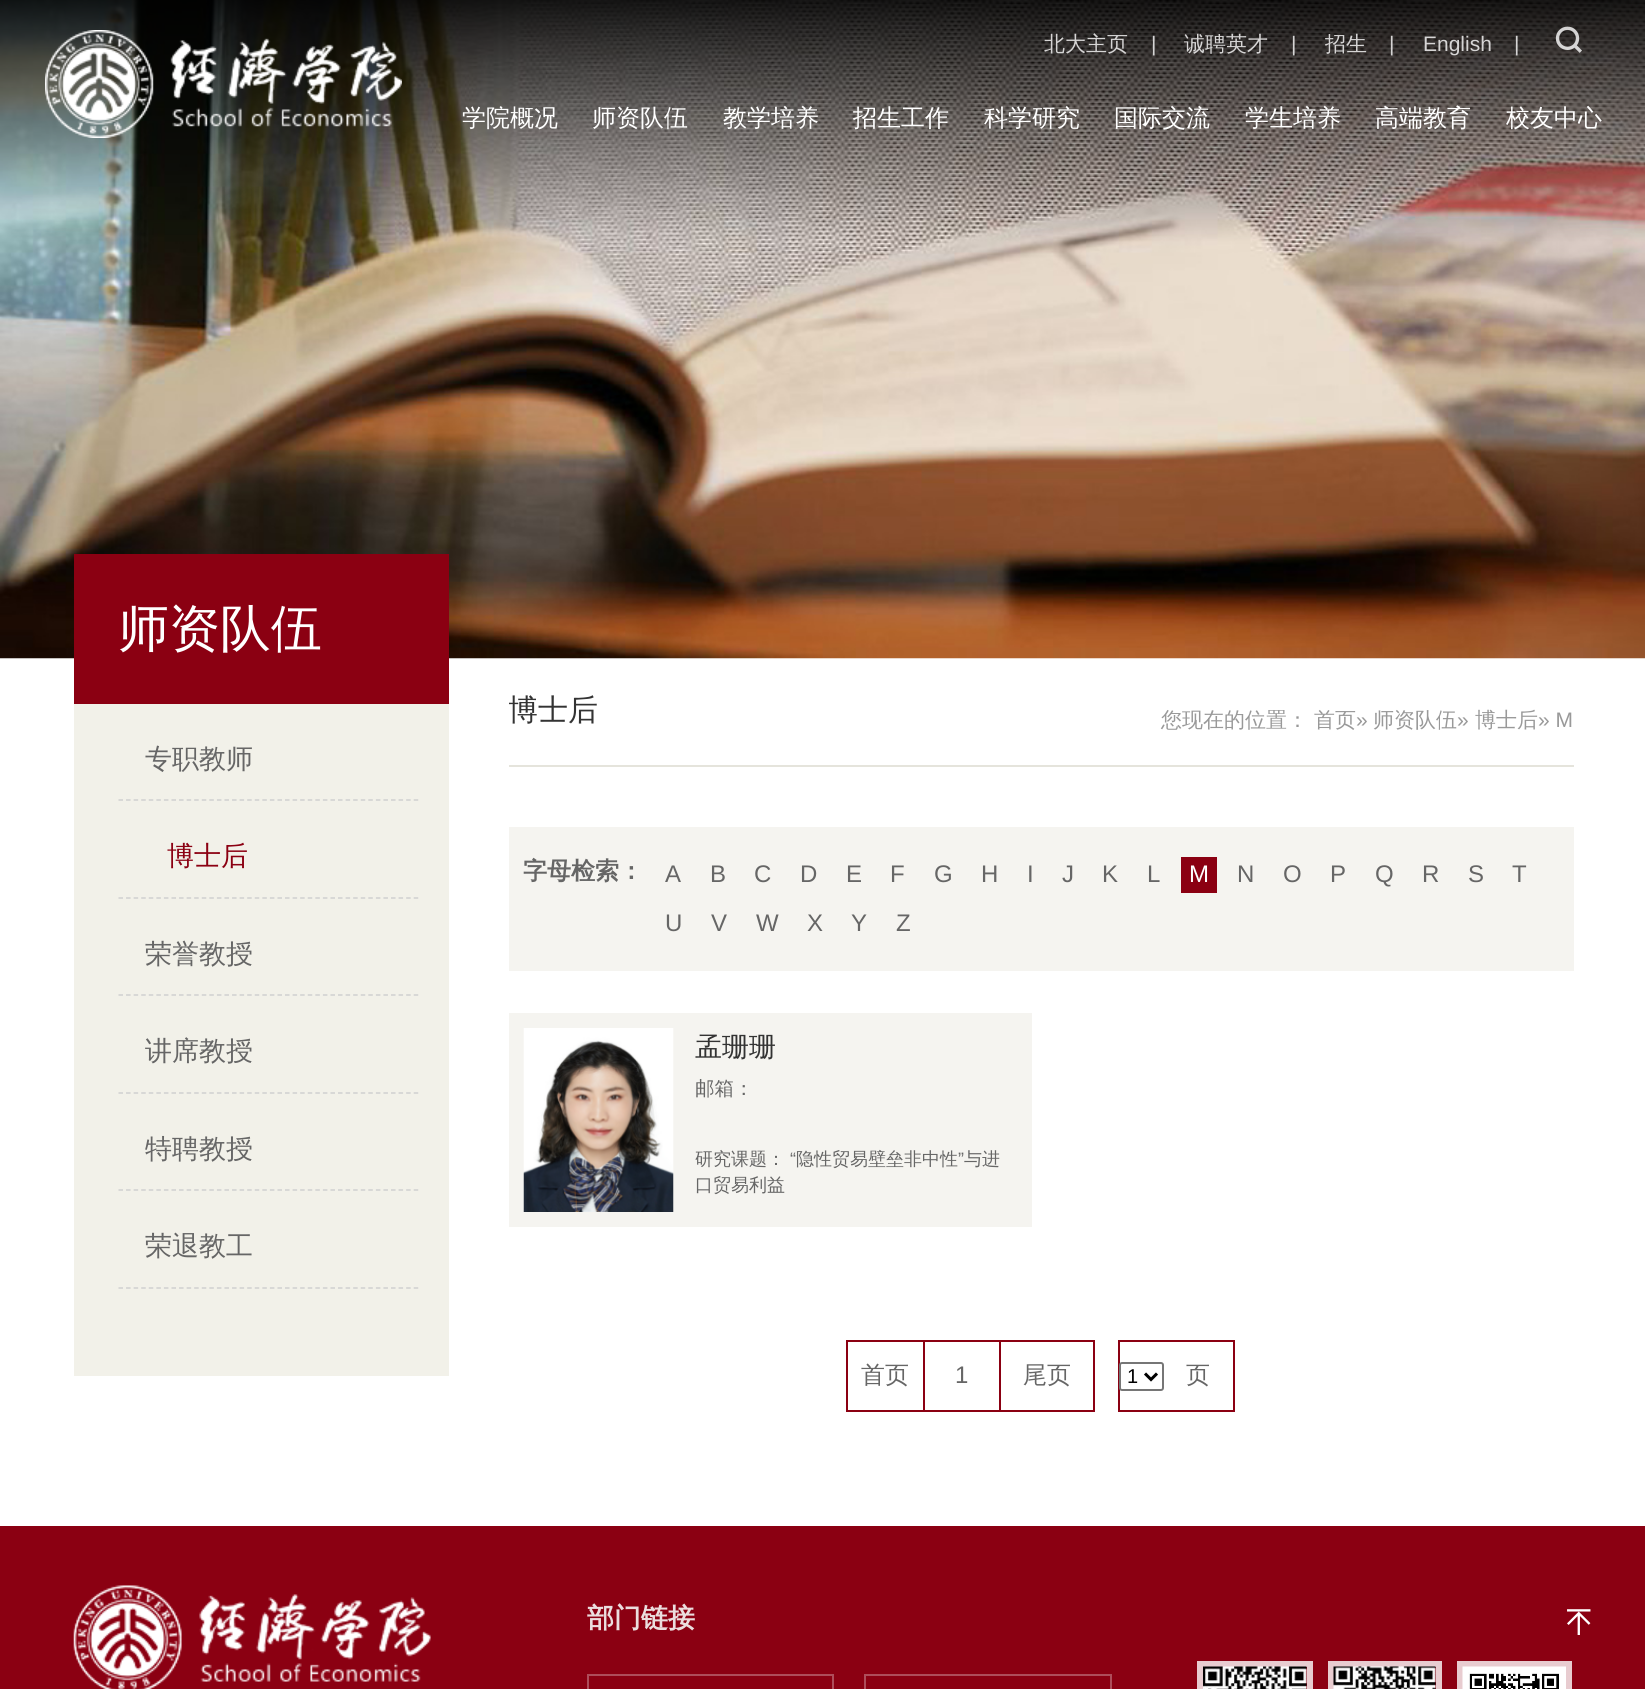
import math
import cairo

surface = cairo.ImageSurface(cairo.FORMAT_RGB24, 1645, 1689)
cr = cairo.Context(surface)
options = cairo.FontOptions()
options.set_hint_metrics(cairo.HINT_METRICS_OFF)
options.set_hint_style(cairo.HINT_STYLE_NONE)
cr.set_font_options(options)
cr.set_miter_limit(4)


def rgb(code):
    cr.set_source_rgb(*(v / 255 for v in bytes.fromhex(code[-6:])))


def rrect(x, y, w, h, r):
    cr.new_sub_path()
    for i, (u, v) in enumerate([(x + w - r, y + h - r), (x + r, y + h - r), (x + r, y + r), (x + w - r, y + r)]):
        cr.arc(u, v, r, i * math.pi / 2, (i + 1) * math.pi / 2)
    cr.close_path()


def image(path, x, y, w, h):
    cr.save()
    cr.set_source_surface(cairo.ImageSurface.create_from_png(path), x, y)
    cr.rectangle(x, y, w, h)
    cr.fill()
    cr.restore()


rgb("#ffffff")
cr.paint()
image("img/1.png", 0, 0, 1645, 659)
image("img/2.png", 45, 30, 357, 108)
image("img/3.png", 1555, 26, 27, 27)
rgb("#f2f1e9")
cr.rectangle(74, 704, 375, 672)
cr.fill()
rgb("#8b0012")
cr.rectangle(74, 554, 375, 150)
cr.fill()
cr.new_path()
cr.move_to(118.5, 800)
cr.line_to(418.5, 800)
rgb("#cfcfcf")
cr.set_line_width(1.5)
cr.set_dash([4.5, 3.07])
cr.stroke()
cr.new_path()
cr.move_to(118.5, 898)
cr.line_to(418.5, 898)
cr.stroke()
cr.new_path()
cr.move_to(118.5, 995)
cr.line_to(418.5, 995)
cr.stroke()
cr.new_path()
cr.move_to(118.5, 1093)
cr.line_to(418.5, 1093)
cr.stroke()
cr.new_path()
cr.move_to(118.5, 1190)
cr.line_to(418.5, 1190)
cr.stroke()
cr.new_path()
cr.move_to(118.5, 1288)
cr.line_to(418.5, 1288)
cr.stroke()
for x, y, w, h, color in [
    (509, 765, 1065, 2, "#e5e4dc"),
    (509, 827, 1065, 144, "#f5f4f0"),
    (1181, 857, 36, 36, "#8b0012"),
    (509, 1013, 523, 214, "#f5f4f0"),
]:
    rgb(color)
    cr.rectangle(x, y, w, h)
    cr.fill()
image("img/4.png", 523, 1028, 151, 184)
for x, y, w, h, color in [
    (846, 1340, 153, 2, "#8b0012"),
    (846, 1410, 153, 2, "#8b0012"),
    (846, 1340, 2, 72, "#8b0012"),
    (923, 1340, 2, 72, "#8b0012"),
]:
    rgb(color)
    cr.rectangle(x, y, w, h)
    cr.fill()
cr.rectangle(1000, 1341, 94, 70)
cr.set_line_width(2)
cr.set_dash([])
cr.stroke()
cr.rectangle(1119, 1341, 115, 70)
cr.stroke()
rgb("#ffffff")
rrect(1120, 1363, 43, 27, 2)
cr.fill_preserve()
rgb("#767676")
cr.stroke()
cr.new_path()
cr.move_to(1145, 1373.5)
cr.line_to(1151, 1379.5)
cr.line_to(1157, 1373.5)
rgb("#000000")
cr.set_line_width(3)
cr.stroke()
rgb("#8b0012")
cr.rectangle(0, 1526, 1645, 163)
cr.fill()
image("img/5.png", 73, 1585, 358, 104)
cr.rectangle(588, 1675, 245, 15)
rgb("#ae4d5a")
cr.set_line_width(2)
cr.stroke()
cr.rectangle(865, 1675, 246, 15)
cr.stroke()
cr.rectangle(1200, 1664, 110, 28)
rgb("#e8ccd0")
cr.set_line_width(6)
cr.stroke()
image("img/6.png", 1203, 1666, 104, 23)
cr.rectangle(1331, 1664, 108, 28)
cr.stroke()
image("img/7.png", 1333, 1666, 103, 23)
cr.rectangle(1460, 1664, 109, 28)
cr.stroke()
image("img/8.png", 1462, 1666, 104, 23)
image("img/9.png", 1567, 1609, 24, 26)
cr.select_font_face("WenQuanYi Zen Hei Medium")
cr.set_font_size(21)
rgb("#d6d5d5")
cr.move_to(1044, 51)
cr.show_text("北大主页")
cr.select_font_face("Liberation Sans")
cr.move_to(1151, 51)
cr.show_text("|")
cr.select_font_face("WenQuanYi Zen Hei Medium")
cr.move_to(1184, 51)
cr.show_text("诚聘英才")
cr.select_font_face("Liberation Sans")
cr.move_to(1291, 51)
cr.show_text("|")
cr.select_font_face("WenQuanYi Zen Hei Medium")
cr.move_to(1325, 51)
cr.show_text("招生")
cr.select_font_face("Liberation Sans")
for x, y, s in [
    (1389, 51, "|"),
    (1423, 51, "English"),
    (1514, 51, "|"),
]:
    cr.move_to(x, y)
    cr.show_text(s)
cr.select_font_face("WenQuanYi Zen Hei Medium")
cr.set_font_size(24)
rgb("#ffffff")
for x, y, s in [
    (462, 126, "学院概况"),
    (592, 126, "师资队伍"),
    (723, 126, "教学培养"),
    (853, 126, "招生工作"),
    (984, 126, "科学研究"),
    (1114, 126, "国际交流"),
    (1245, 126, "学生培养"),
    (1375, 126, "高端教育"),
    (1506, 126, "校友中心"),
]:
    cr.move_to(x, y)
    cr.show_text(s)
cr.set_font_size(51)
cr.move_to(118, 646)
cr.show_text("师资队伍")
cr.set_font_size(27)
rgb("#666666")
cr.move_to(145, 768)
cr.show_text("专职教师")
rgb("#8b0012")
cr.move_to(167, 865)
cr.show_text("博士后")
rgb("#666666")
for x, y, s in [
    (145, 963, "荣誉教授"),
    (145, 1060, "讲席教授"),
    (145, 1158, "特聘教授"),
    (145, 1255, "荣退教工"),
]:
    cr.move_to(x, y)
    cr.show_text(s)
cr.save()
cr.rectangle(509, 690, 1065, 75)
cr.clip()
cr.set_font_size(30)
rgb("#333333")
cr.move_to(508, 720)
cr.show_text("博士后")
cr.restore()
cr.set_font_size(21)
rgb("#999999")
cr.move_to(1161, 727)
cr.show_text("您现在的位置：")
cr.move_to(1314, 727)
cr.show_text("首页")
cr.select_font_face("Liberation Sans")
cr.move_to(1356, 727)
cr.show_text("»")
cr.select_font_face("WenQuanYi Zen Hei Medium")
cr.move_to(1373, 727)
cr.show_text("师资队伍")
cr.select_font_face("Liberation Sans")
cr.move_to(1457, 727)
cr.show_text("»")
cr.select_font_face("WenQuanYi Zen Hei Medium")
cr.move_to(1475, 727)
cr.show_text("博士后")
cr.select_font_face("Liberation Sans")
cr.move_to(1538, 727)
cr.show_text("» M")
cr.select_font_face("WenQuanYi Zen Hei", cairo.FONT_SLANT_NORMAL, cairo.FONT_WEIGHT_BOLD)
cr.set_font_size(24)
rgb("#666666")
cr.move_to(523, 879)
cr.show_text("字母检索：")
cr.select_font_face("Liberation Sans")
for x, y, s in [
    (665, 882, "A"),
    (710, 882, "B"),
    (754, 882, "C"),
    (800, 882, "D"),
    (846, 882, "E"),
    (890, 882, "F"),
    (934, 882, "G"),
    (981, 882, "H"),
    (1027, 882, "I"),
    (1062, 882, "J"),
    (1102, 882, "K"),
    (1147, 882, "L"),
]:
    cr.move_to(x, y)
    cr.show_text(s)
rgb("#ffffff")
cr.move_to(1189, 882)
cr.show_text("M")
rgb("#666666")
for x, y, s in [
    (1237, 882, "N"),
    (1283, 882, "O"),
    (1330, 882, "P"),
    (1375, 882, "Q"),
    (1422, 882, "R"),
    (1468, 882, "S"),
    (1512, 882, "T"),
    (665, 931, "U"),
    (711, 931, "V"),
    (756, 931, "W"),
    (807, 931, "X"),
    (851, 931, "Y"),
    (896, 931, "Z"),
]:
    cr.move_to(x, y)
    cr.show_text(s)
cr.select_font_face("WenQuanYi Zen Hei Medium")
cr.set_font_size(27)
rgb("#333333")
cr.move_to(695, 1056)
cr.show_text("孟珊珊")
cr.set_font_size(19.5)
rgb("#666666")
cr.move_to(695, 1095)
cr.show_text("邮箱：")
cr.set_font_size(18)
cr.move_to(695, 1165)
cr.show_text("研究课题：")
cr.select_font_face("Liberation Sans")
cr.move_to(790, 1165)
cr.show_text("“")
cr.select_font_face("WenQuanYi Zen Hei Medium")
cr.move_to(796, 1165)
cr.show_text("隐性贸易壁垒非中性")
cr.select_font_face("Liberation Sans")
cr.move_to(958, 1165)
cr.show_text("”")
cr.select_font_face("WenQuanYi Zen Hei Medium")
cr.move_to(964, 1165)
cr.show_text("与进")
cr.move_to(695, 1191)
cr.show_text("口贸易利益")
cr.set_font_size(24)
cr.move_to(861, 1383)
cr.show_text("首页")
cr.select_font_face("Liberation Sans")
cr.move_to(955, 1383)
cr.show_text("1")
cr.select_font_face("WenQuanYi Zen Hei Medium")
cr.move_to(1023, 1383)
cr.show_text("尾页")
cr.select_font_face("Liberation Sans")
cr.set_font_size(20)
rgb("#000000")
cr.move_to(1127, 1383)
cr.show_text("1")
cr.select_font_face("WenQuanYi Zen Hei Medium")
cr.set_font_size(24)
rgb("#666666")
cr.move_to(1186, 1383)
cr.show_text("页")
cr.select_font_face("WenQuanYi Zen Hei", cairo.FONT_SLANT_NORMAL, cairo.FONT_WEIGHT_BOLD)
cr.set_font_size(27)
rgb("#ebddde")
cr.move_to(587, 1627)
cr.show_text("部门链接")
surface.write_to_png("page.png")
